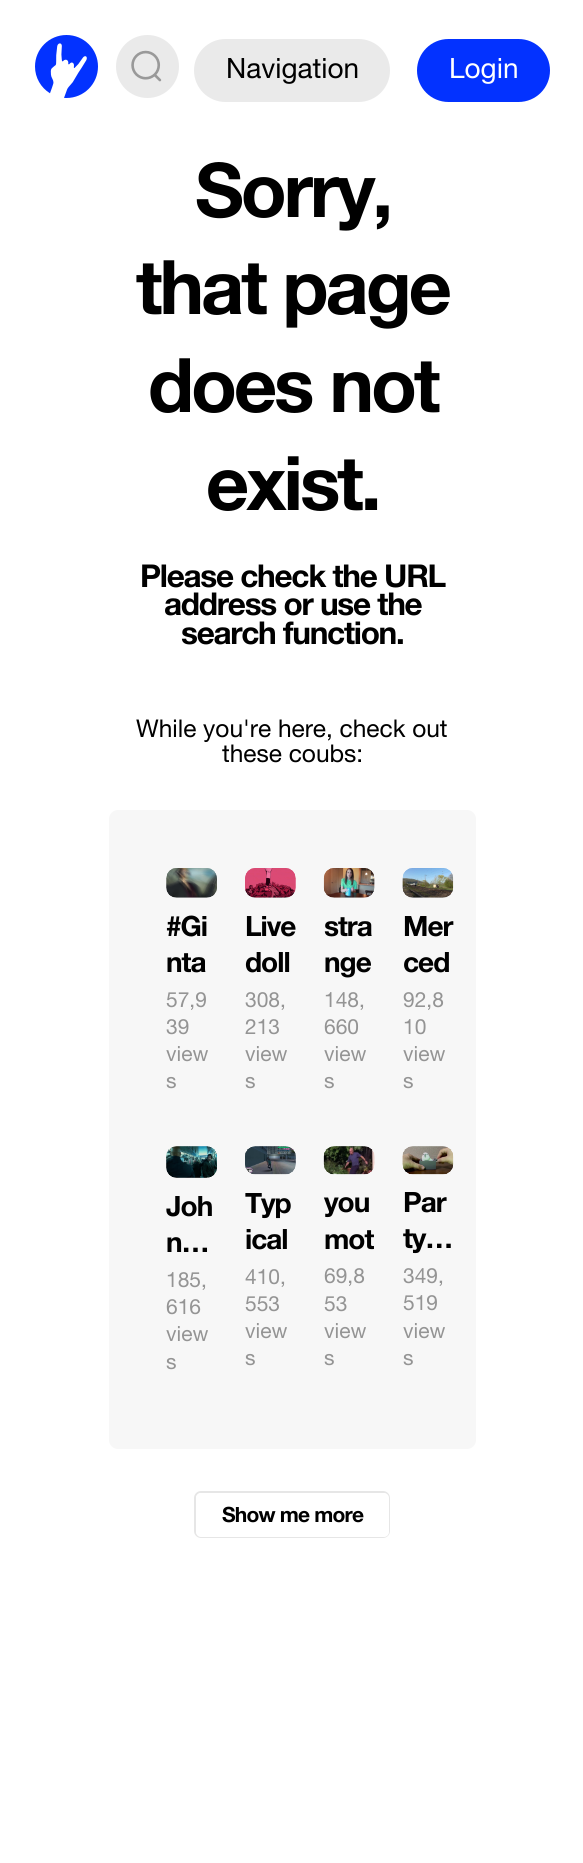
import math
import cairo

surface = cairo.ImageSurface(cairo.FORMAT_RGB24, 583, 1863)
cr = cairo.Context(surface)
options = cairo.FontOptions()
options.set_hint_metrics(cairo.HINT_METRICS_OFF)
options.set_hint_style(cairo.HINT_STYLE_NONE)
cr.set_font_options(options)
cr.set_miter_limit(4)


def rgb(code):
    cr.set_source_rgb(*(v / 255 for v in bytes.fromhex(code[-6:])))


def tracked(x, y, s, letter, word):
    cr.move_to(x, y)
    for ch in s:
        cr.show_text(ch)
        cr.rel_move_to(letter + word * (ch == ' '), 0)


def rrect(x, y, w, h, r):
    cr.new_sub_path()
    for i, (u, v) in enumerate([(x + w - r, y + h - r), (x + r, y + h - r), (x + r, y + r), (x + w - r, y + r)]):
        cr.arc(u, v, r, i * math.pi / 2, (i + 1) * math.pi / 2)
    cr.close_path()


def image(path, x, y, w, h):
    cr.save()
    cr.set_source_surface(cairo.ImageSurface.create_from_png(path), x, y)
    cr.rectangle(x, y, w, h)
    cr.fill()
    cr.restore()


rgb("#ffffff")
cr.paint()
image("img/1.png", 35, 35, 63, 63)
rgb("#eaeaea")
cr.arc(147.5, 66.5, 31.5, 0, 2 * math.pi)
cr.fill()
image("img/2.png", 131, 50, 31, 32)
rrect(194, 39, 196, 63, 31.5)
cr.fill()
rgb("#0332ff")
rrect(417, 39, 133, 63, 31.5)
cr.fill()
rgb("#f7f7f7")
rrect(109, 810, 367, 639, 9)
cr.fill()
image("img/3.png", 166, 868, 51, 30)
image("img/4.png", 166, 868, 51, 28)
image("img/5.png", 245, 868, 51, 30)
image("img/6.png", 245, 868, 51, 28)
image("img/7.png", 323, 868, 52, 30)
image("img/8.png", 324, 868, 51, 28)
image("img/9.png", 402, 868, 52, 30)
image("img/10.png", 402, 868, 51, 28)
image("img/11.png", 166, 1146, 51, 32)
image("img/12.png", 166, 1146, 51, 32)
image("img/13.png", 245, 1146, 51, 29)
image("img/14.png", 245, 1146, 51, 29)
image("img/15.png", 323, 1146, 52, 29)
image("img/16.png", 323, 1146, 52, 29)
image("img/17.png", 402, 1146, 52, 29)
image("img/18.png", 402, 1146, 52, 29)
rrect(195, 1492, 194, 45, 6)
rgb("#e6e6e6")
cr.stroke()
rgb("#ffffff")
rrect(196, 1493, 193, 44, 5)
cr.fill()
cr.select_font_face("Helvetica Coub")
cr.set_font_size(28)
rgb("#000000")
cr.move_to(226, 78)
cr.show_text("Navigation")
rgb("#ffffff")
cr.move_to(449, 78)
cr.show_text("Login")
cr.select_font_face("Helvetica Coub", cairo.FONT_SLANT_NORMAL, cairo.FONT_WEIGHT_BOLD)
cr.set_font_size(75.25)
rgb("#000000")
for x, y, s in [
    (195, 217, "Sorry,"),
    (136, 314, "that page"),
    (148, 412, "does not"),
    (206, 510, "exist."),
]:
    tracked(x, y, s, -3, 0)
cr.set_font_size(31.5)
for x, y, s in [
    (140, 587, "Please check the URL"),
    (164, 615, "address or use the"),
    (181, 644, "search function."),
]:
    tracked(x, y, s, -1.25, 0)
cr.select_font_face("Helvetica Coub")
cr.set_font_size(24.5)
cr.move_to(136, 737)
cr.show_text("While you're here, check out")
cr.move_to(222, 762)
cr.show_text("these coubs:")
cr.select_font_face("Helvetica Coub", cairo.FONT_SLANT_NORMAL, cairo.FONT_WEIGHT_BOLD)
cr.set_font_size(28)
tracked(166, 936, "#Gi", -1, 0)
tracked(166, 972, "nta", -1, 0)
cr.select_font_face("Helvetica Coub")
cr.set_font_size(21)
rgb("#949494")
for x, y, s in [
    (166, 1007, "57,9"),
    (166, 1034, "39"),
    (166, 1061, "view"),
    (166, 1088, "s"),
]:
    cr.move_to(x, y)
    cr.show_text(s)
cr.select_font_face("Helvetica Coub", cairo.FONT_SLANT_NORMAL, cairo.FONT_WEIGHT_BOLD)
cr.set_font_size(28)
rgb("#000000")
tracked(245, 936, "Live", -1, 0)
tracked(245, 972, "doll", -1, 0)
cr.select_font_face("Helvetica Coub")
cr.set_font_size(21)
rgb("#949494")
for x, y, s in [
    (245, 1007, "308,"),
    (245, 1034, "213"),
    (245, 1061, "view"),
    (245, 1088, "s"),
]:
    cr.move_to(x, y)
    cr.show_text(s)
cr.select_font_face("Helvetica Coub", cairo.FONT_SLANT_NORMAL, cairo.FONT_WEIGHT_BOLD)
cr.set_font_size(28)
rgb("#000000")
tracked(324, 936, "stra", -1, 0)
tracked(324, 972, "nge", -1, 0)
cr.select_font_face("Helvetica Coub")
cr.set_font_size(21)
rgb("#949494")
for x, y, s in [
    (324, 1007, "148,"),
    (324, 1034, "660"),
    (324, 1061, "view"),
    (324, 1088, "s"),
]:
    cr.move_to(x, y)
    cr.show_text(s)
cr.select_font_face("Helvetica Coub", cairo.FONT_SLANT_NORMAL, cairo.FONT_WEIGHT_BOLD)
cr.set_font_size(28)
rgb("#000000")
tracked(403, 936, "Mer", -1, 0)
tracked(403, 972, "ced", -1, 0)
cr.select_font_face("Helvetica Coub")
cr.set_font_size(21)
rgb("#949494")
for x, y, s in [
    (403, 1007, "92,8"),
    (403, 1034, "10"),
    (403, 1061, "view"),
    (403, 1088, "s"),
]:
    cr.move_to(x, y)
    cr.show_text(s)
cr.select_font_face("Helvetica Coub", cairo.FONT_SLANT_NORMAL, cairo.FONT_WEIGHT_BOLD)
cr.set_font_size(28)
rgb("#000000")
tracked(166, 1216, "Joh", -1, 0)
tracked(166, 1252, "n…", -1, 0)
cr.select_font_face("Helvetica Coub")
cr.set_font_size(21)
rgb("#949494")
for x, y, s in [
    (166, 1287, "185,"),
    (166, 1314, "616"),
    (166, 1341, "view"),
    (166, 1369, "s"),
]:
    cr.move_to(x, y)
    cr.show_text(s)
cr.select_font_face("Helvetica Coub", cairo.FONT_SLANT_NORMAL, cairo.FONT_WEIGHT_BOLD)
cr.set_font_size(28)
rgb("#000000")
tracked(245, 1213, "Typ", -1, 0)
tracked(245, 1249, "ical", -1, 0)
cr.select_font_face("Helvetica Coub")
cr.set_font_size(21)
rgb("#949494")
for x, y, s in [
    (245, 1284, "410,"),
    (245, 1311, "553"),
    (245, 1338, "view"),
    (245, 1365, "s"),
]:
    cr.move_to(x, y)
    cr.show_text(s)
cr.select_font_face("Helvetica Coub", cairo.FONT_SLANT_NORMAL, cairo.FONT_WEIGHT_BOLD)
cr.set_font_size(28)
rgb("#000000")
tracked(324, 1212, "you", -1, 0)
tracked(324, 1249, "mot", -1, 0)
cr.select_font_face("Helvetica Coub")
cr.set_font_size(21)
rgb("#949494")
for x, y, s in [
    (324, 1283, "69,8"),
    (324, 1311, "53"),
    (324, 1338, "view"),
    (324, 1365, "s"),
]:
    cr.move_to(x, y)
    cr.show_text(s)
cr.select_font_face("Helvetica Coub", cairo.FONT_SLANT_NORMAL, cairo.FONT_WEIGHT_BOLD)
cr.set_font_size(28)
rgb("#000000")
tracked(403, 1212, "Par", -1, 0)
cr.save()
cr.rectangle(403, 1187, 50, 71)
cr.clip()
tracked(403, 1248, "ty…", -1, 0)
cr.restore()
cr.select_font_face("Helvetica Coub")
cr.set_font_size(21)
rgb("#949494")
for x, y, s in [
    (403, 1283, "349,"),
    (403, 1310, "519"),
    (403, 1338, "view"),
    (403, 1365, "s"),
]:
    cr.move_to(x, y)
    cr.show_text(s)
cr.select_font_face("Helvetica Coub", cairo.FONT_SLANT_NORMAL, cairo.FONT_WEIGHT_BOLD)
rgb("#000000")
tracked(222, 1522, "Show me more", -0.8, 0)
surface.write_to_png("page.png")
